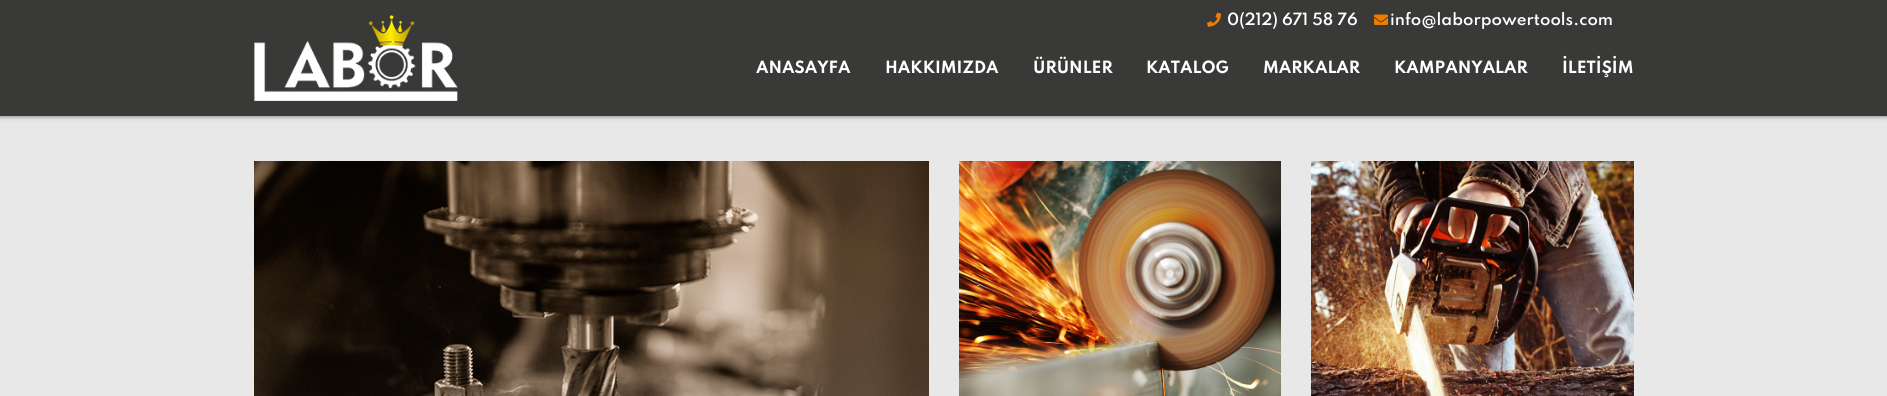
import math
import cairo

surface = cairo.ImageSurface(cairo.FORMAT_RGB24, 1887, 396)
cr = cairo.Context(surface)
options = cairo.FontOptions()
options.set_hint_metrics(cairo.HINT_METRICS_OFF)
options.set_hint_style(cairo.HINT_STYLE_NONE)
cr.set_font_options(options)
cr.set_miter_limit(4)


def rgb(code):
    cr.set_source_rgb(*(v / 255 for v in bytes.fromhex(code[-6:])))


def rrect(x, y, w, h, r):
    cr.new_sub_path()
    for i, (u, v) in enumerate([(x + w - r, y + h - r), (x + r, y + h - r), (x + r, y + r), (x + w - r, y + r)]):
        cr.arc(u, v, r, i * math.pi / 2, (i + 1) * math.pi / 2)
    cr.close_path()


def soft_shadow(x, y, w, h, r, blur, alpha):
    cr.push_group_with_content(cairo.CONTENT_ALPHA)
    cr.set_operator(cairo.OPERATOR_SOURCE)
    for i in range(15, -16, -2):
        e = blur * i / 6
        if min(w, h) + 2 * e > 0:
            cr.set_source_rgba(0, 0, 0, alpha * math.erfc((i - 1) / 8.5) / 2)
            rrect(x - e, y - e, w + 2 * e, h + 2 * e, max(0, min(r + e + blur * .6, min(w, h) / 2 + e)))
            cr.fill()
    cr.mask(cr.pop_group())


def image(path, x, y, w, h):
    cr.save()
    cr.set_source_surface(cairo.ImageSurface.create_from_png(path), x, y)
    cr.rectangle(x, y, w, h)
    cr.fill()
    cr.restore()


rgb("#e8e8e8")
cr.paint()
rgb("#676767")
soft_shadow(0, 0, 1887, 116, 0, 2.5, 1)
rgb("#393938")
cr.rectangle(0, 0, 1887, 116)
cr.fill()
image("img/1.png", 254, 15, 204, 86)
image("img/2.png", 1207, 12, 14, 15)
image("img/3.png", 1374, 14, 14, 11)
image("img/4.png", 254, 161, 675, 235)
image("img/5.png", 959, 161, 322, 235)
image("img/6.png", 1311, 161, 323, 235)
cr.select_font_face("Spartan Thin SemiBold")
cr.set_font_size(15)
rgb("#ffffff")
cr.move_to(1227, 25)
cr.show_text("0(212) 671 58 76")
cr.move_to(1390, 25)
cr.show_text("info@laborpowertools.com")
cr.select_font_face("Spartan Thin", cairo.FONT_SLANT_NORMAL, cairo.FONT_WEIGHT_BOLD)
for x, y, s in [
    (756, 73, "ANASAYFA"),
    (885, 73, "HAKKIMIZDA"),
    (1033, 73, "ÜRÜNLER"),
    (1146, 73, "KATALOG"),
    (1263, 73, "MARKALAR"),
    (1394, 73, "KAMPANYALAR"),
    (1562, 73, "İLETİŞİM"),
]:
    cr.move_to(x, y)
    cr.show_text(s)
surface.write_to_png("page.png")
